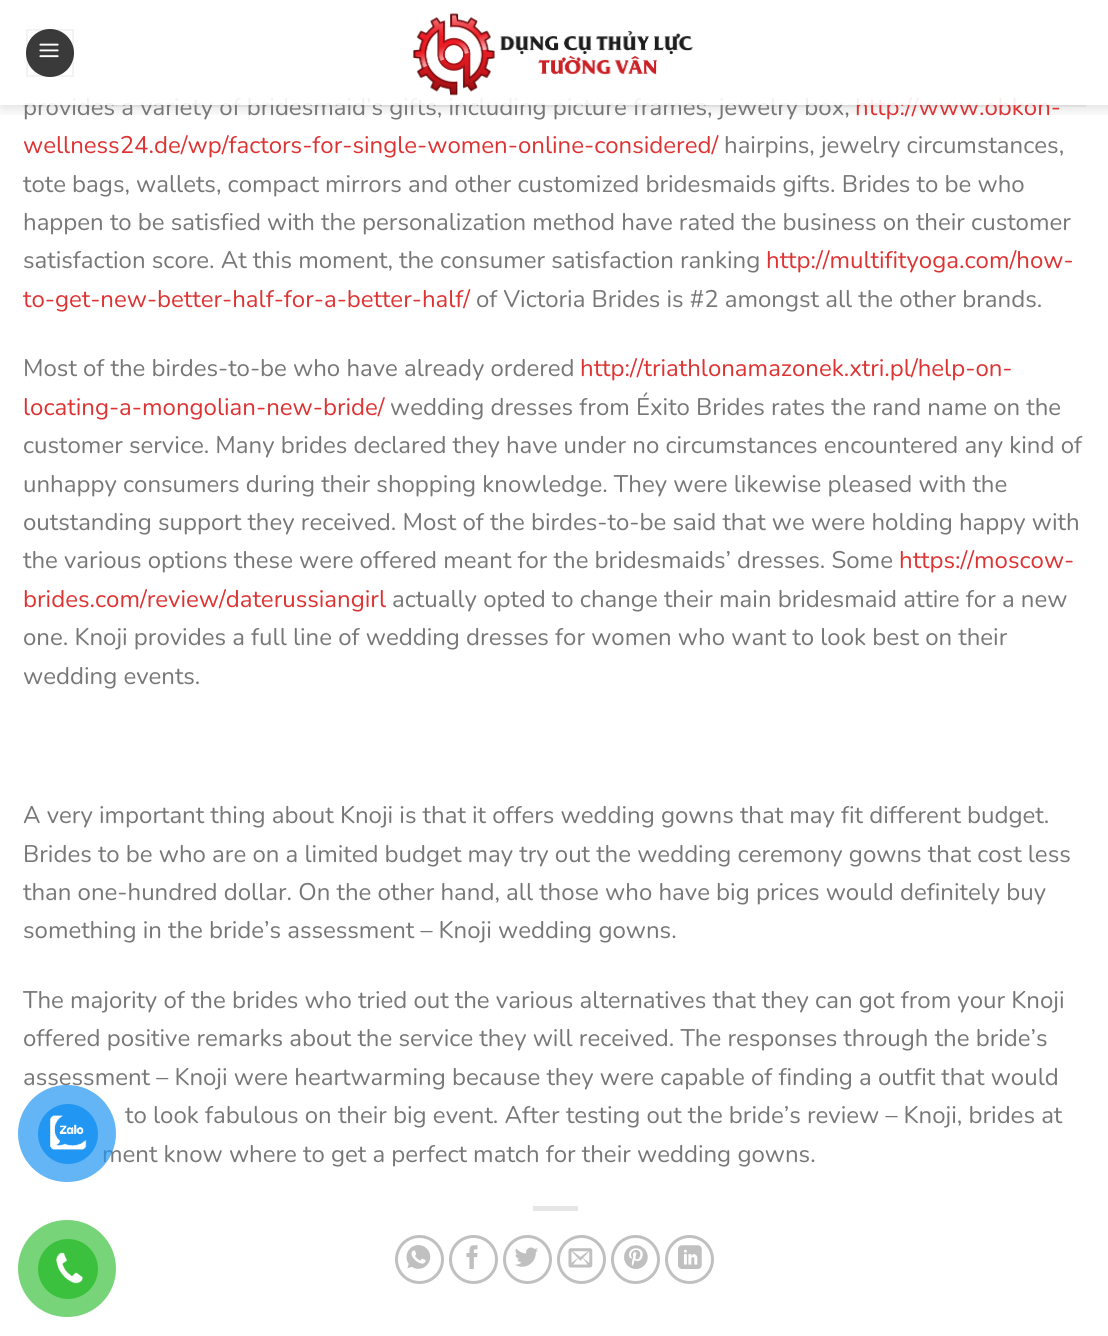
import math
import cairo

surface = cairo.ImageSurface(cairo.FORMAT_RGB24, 1108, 1336)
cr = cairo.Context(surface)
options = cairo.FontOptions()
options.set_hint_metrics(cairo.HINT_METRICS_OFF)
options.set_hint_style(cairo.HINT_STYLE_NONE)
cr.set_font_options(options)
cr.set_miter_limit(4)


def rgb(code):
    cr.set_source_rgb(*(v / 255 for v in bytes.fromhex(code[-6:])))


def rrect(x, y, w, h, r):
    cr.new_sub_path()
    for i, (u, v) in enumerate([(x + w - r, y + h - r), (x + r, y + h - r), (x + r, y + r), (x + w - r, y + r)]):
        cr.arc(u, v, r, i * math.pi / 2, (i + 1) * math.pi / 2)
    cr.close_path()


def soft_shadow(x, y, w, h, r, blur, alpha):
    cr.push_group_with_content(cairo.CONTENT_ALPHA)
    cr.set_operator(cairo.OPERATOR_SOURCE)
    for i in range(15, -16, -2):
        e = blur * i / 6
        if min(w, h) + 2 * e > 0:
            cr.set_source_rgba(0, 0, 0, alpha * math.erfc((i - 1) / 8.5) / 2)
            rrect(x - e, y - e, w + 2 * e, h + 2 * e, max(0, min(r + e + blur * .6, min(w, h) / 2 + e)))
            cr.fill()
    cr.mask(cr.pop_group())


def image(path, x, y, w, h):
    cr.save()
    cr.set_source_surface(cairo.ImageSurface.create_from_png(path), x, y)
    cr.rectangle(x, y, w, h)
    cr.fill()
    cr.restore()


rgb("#ffffff")
cr.paint()
cr.save()
cr.rectangle(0, 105, 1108, 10)
cr.clip()
rgb("#000000")
soft_shadow(2, 2, 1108, 105, 0, 7.5, 0.15)
cr.restore()
rgb("#3a3a3a")
cr.arc(50, 53, 24, 0, 2 * math.pi)
cr.fill()
cr.rectangle(27, 30, 46, 46)
cr.set_source_rgba(0, 0, 0, 0.05)
cr.stroke()
image("img/1.png", 39, 43, 20, 15)
image("img/2.png", 412, 13, 281, 83)
cr.set_source_rgba(0.467, 0.467, 0.467, 0.1)
cr.rectangle(23, 105, 1063, 2)
cr.fill()
rgb("#e6e6e6")
cr.rectangle(533, 1206, 45, 5)
cr.fill()
cr.arc(419.5, 1259.5, 23, 0, 2 * math.pi)
rgb("#c0c0c0")
cr.set_line_width(3)
cr.stroke()
image("img/3.png", 406, 1245, 25, 24)
cr.arc(473.5, 1259.5, 23, 0, 2 * math.pi)
cr.stroke()
image("img/4.png", 466, 1245, 12, 24)
cr.arc(527.5, 1259.5, 23, 0, 2 * math.pi)
cr.stroke()
image("img/5.png", 515, 1247, 23, 20)
cr.arc(581.5, 1259.5, 23, 0, 2 * math.pi)
cr.stroke()
image("img/6.png", 568, 1248, 25, 20)
cr.arc(635.5, 1259.5, 23, 0, 2 * math.pi)
cr.stroke()
image("img/7.png", 624, 1245, 24, 24)
cr.arc(689.5, 1259.5, 23, 0, 2 * math.pi)
cr.stroke()
image("img/8.png", 678, 1245, 24, 24)
rgb("#77d478")
rrect(18, 1220, 98, 97, 48.5)
cr.fill()
rgb("#3cc13e")
cr.arc(68, 1269, 30, 0, 2 * math.pi)
cr.fill()
image("img/10.png", 56, 1252, 27, 32)
cr.select_font_face("Nunito")
cr.set_font_size(24)
rgb("#777777")
cr.move_to(23, 115)
cr.show_text("provides a variety of bridesmaid’s gifts, including picture frames, jewelry box,")
rgb("#dd3333")
cr.move_to(855, 115)
cr.show_text("http://www.obkon-")
cr.set_source_rgba(1, 1, 1, 0.9)
cr.rectangle(24, 97, 1025, 8)
cr.fill()
rgb("#dd3333")
cr.move_to(23, 153)
cr.show_text("wellness24.de/wp/factors-for-single-women-online-considered/")
rgb("#777777")
for x, y, s in [
    (724, 153, "hairpins, jewelry circumstances,"),
    (23, 192, "tote bags, wallets, compact mirrors and other customized bridesmaids gifts. Brides to be who"),
    (23, 230, "happen to be satisfied with the personalization method have rated the business on their customer"),
    (23, 268, "satisfaction score. At this moment, the consumer satisfaction ranking"),
]:
    cr.move_to(x, y)
    cr.show_text(s)
rgb("#dd3333")
cr.move_to(766, 268)
cr.show_text("http://multifityoga.com/how-")
cr.move_to(23, 307)
cr.show_text("to-get-new-better-half-for-a-better-half/")
rgb("#777777")
cr.move_to(476, 307)
cr.show_text("of Victoria Brides is #2 amongst all the other brands.")
cr.move_to(23, 376)
cr.show_text("Most of the birdes-to-be who have already ordered")
rgb("#dd3333")
cr.move_to(580, 376)
cr.show_text("http://triathlonamazonek.xtri.pl/help-on-")
cr.move_to(23, 415)
cr.show_text("locating-a-mongolian-new-bride/")
rgb("#777777")
for x, y, s in [
    (390, 415, "wedding dresses from Éxito Brides rates the rand name on the"),
    (23, 453, "customer service. Many brides declared they have under no circumstances encountered any kind of"),
    (23, 492, "unhappy consumers during their shopping knowledge. They were likewise pleased with the"),
    (23, 530, "outstanding support they received. Most of the birdes-to-be said that we were holding happy with"),
    (23, 568, "the various options these were offered meant for the bridesmaids’ dresses. Some"),
]:
    cr.move_to(x, y)
    cr.show_text(s)
rgb("#dd3333")
cr.move_to(899, 568)
cr.show_text("https://moscow-")
cr.move_to(23, 607)
cr.show_text("brides.com/review/daterussiangirl")
rgb("#777777")
for x, y, s in [
    (392, 607, "actually opted to change their main bridesmaid attire for a new"),
    (23, 645, "one. Knoji provides a full line of wedding dresses for women who want to look best on their"),
    (23, 684, "wedding events."),
    (23, 823, "A very important thing about Knoji is that it offers wedding gowns that may fit different budget."),
    (23, 862, "Brides to be who are on a limited budget may try out the wedding ceremony gowns that cost less"),
    (23, 900, "than one-hundred dollar. On the other hand, all those who have big prices would definitely buy"),
    (23, 938, "something in the bride’s assessment – Knoji wedding gowns."),
    (23, 1008, "The majority of the brides who tried out the various alternatives that they can got from your Knoji"),
    (23, 1046, "offered positive remarks about the service they will received. The responses through the bride’s"),
    (23, 1085, "assessment – Knoji were heartwarming because they were capable of finding a outfit that would"),
    (125, 1123, "to look fabulous on their big event. After testing out the bride’s review – Knoji, brides at"),
    (102, 1162, "ment know where to get a perfect match for their wedding gowns."),
]:
    cr.move_to(x, y)
    cr.show_text(s)
cr.set_source_rgba(0.129, 0.588, 0.953, 0.7)
rrect(18, 1085, 98, 97, 48.5)
cr.fill()
rgb("#2196f3")
cr.arc(68, 1134, 30, 0, 2 * math.pi)
cr.fill()
image("img/9.png", 50, 1115, 37, 35)
surface.write_to_png("page.png")
